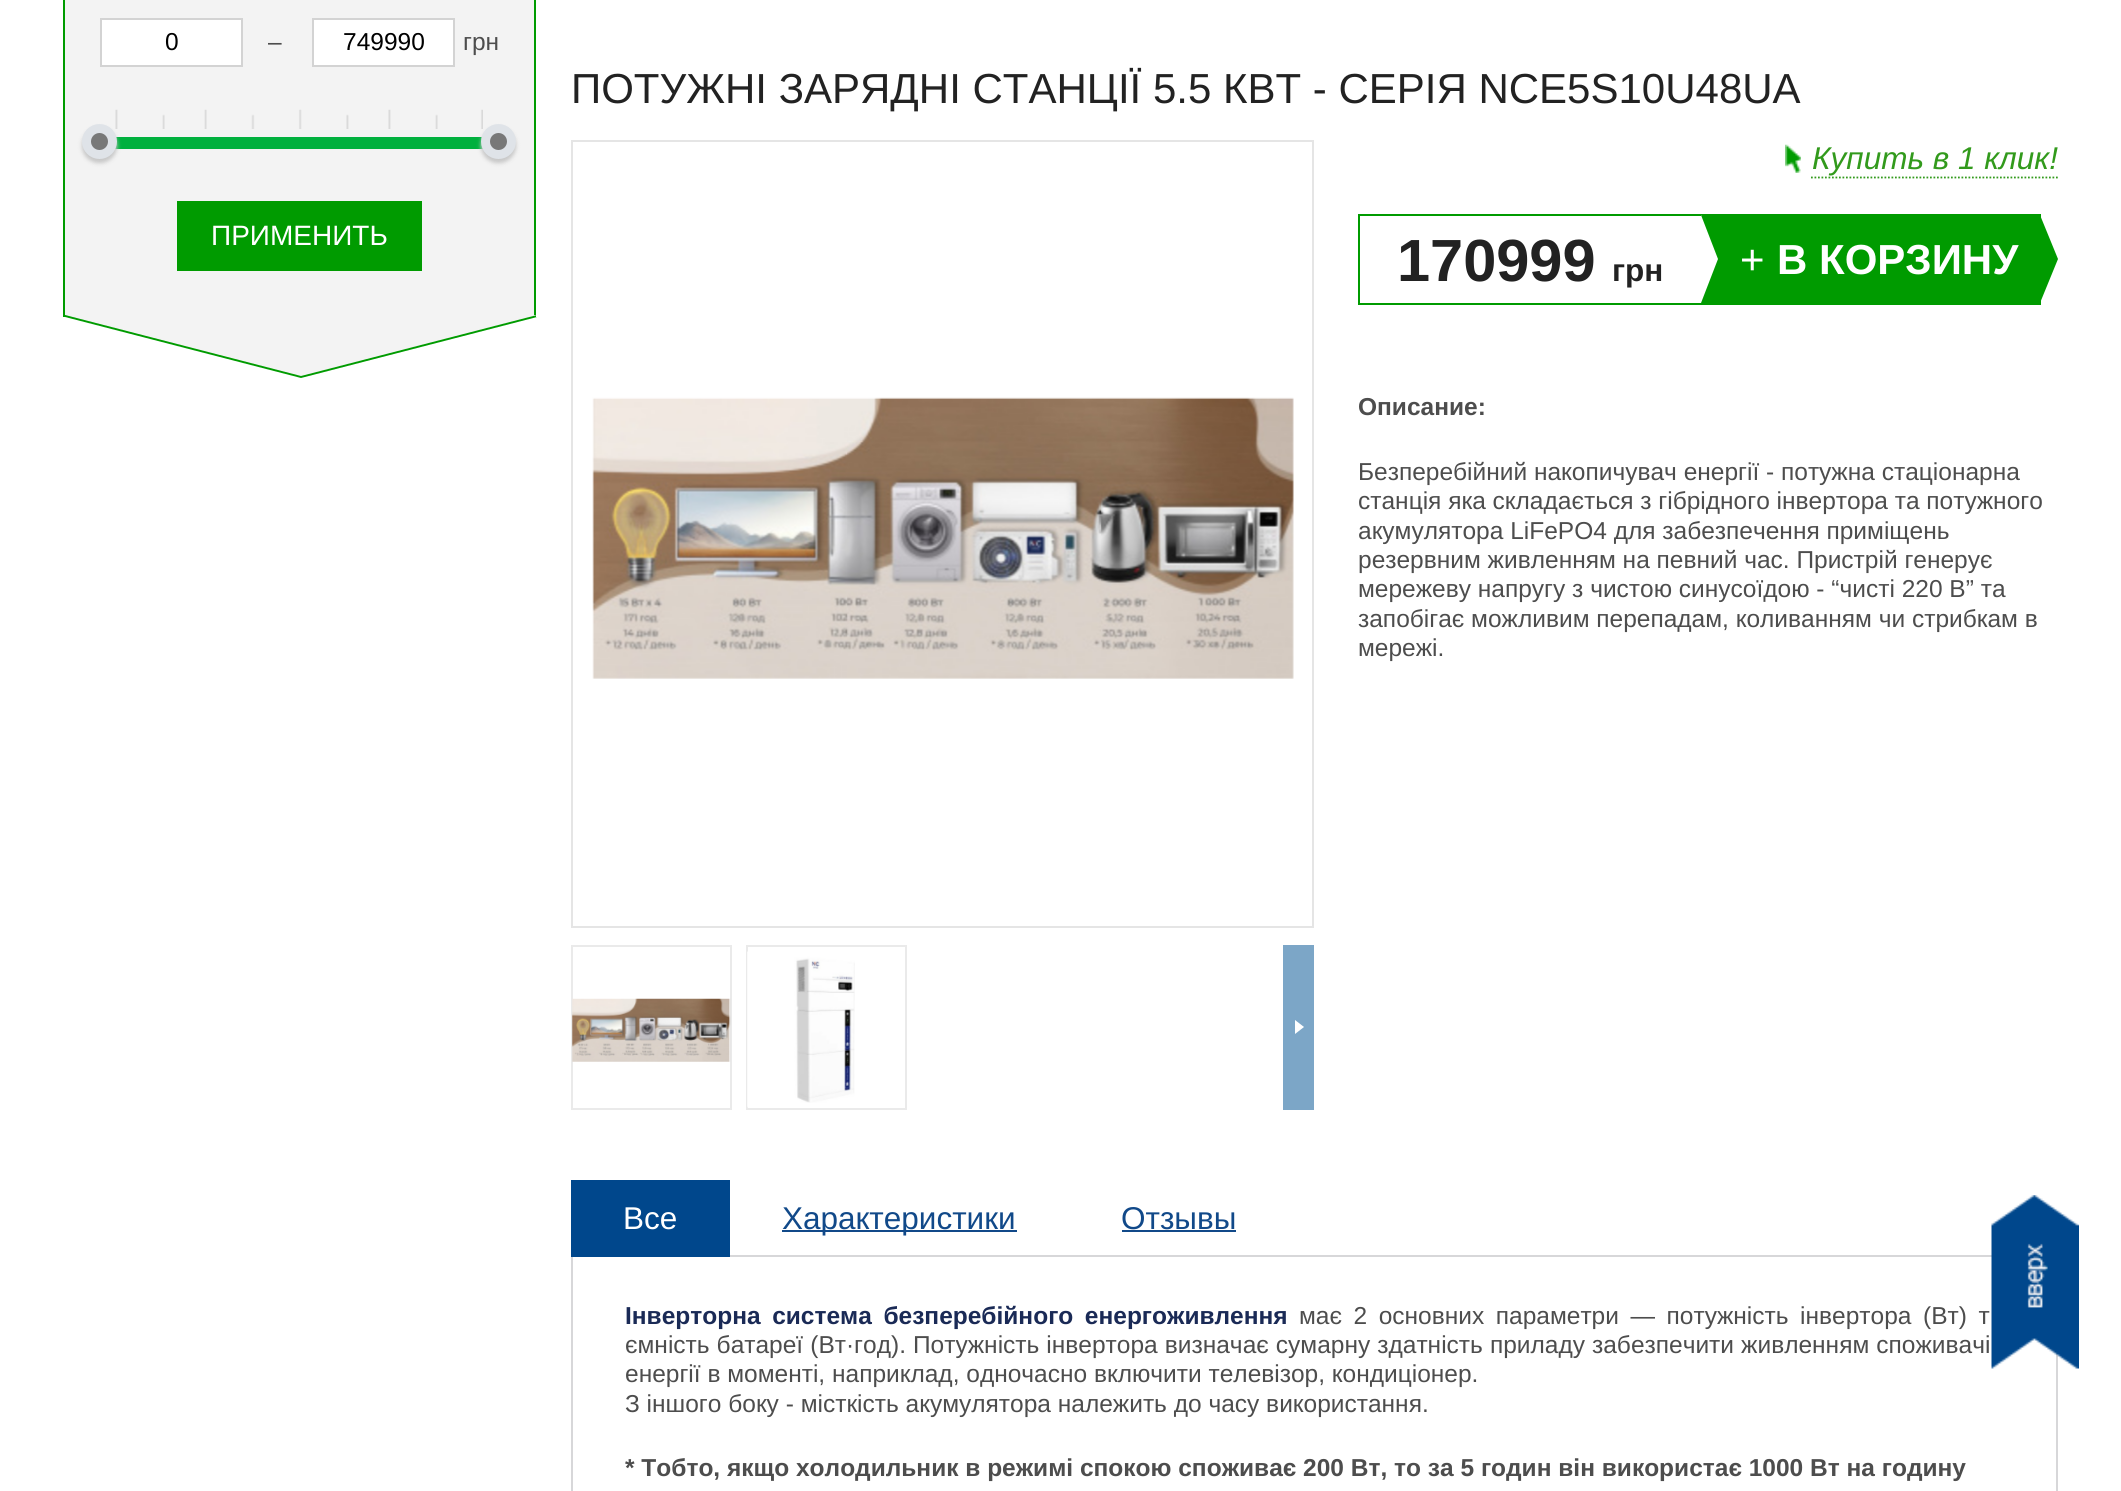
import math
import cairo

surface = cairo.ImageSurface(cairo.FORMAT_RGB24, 2121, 1491)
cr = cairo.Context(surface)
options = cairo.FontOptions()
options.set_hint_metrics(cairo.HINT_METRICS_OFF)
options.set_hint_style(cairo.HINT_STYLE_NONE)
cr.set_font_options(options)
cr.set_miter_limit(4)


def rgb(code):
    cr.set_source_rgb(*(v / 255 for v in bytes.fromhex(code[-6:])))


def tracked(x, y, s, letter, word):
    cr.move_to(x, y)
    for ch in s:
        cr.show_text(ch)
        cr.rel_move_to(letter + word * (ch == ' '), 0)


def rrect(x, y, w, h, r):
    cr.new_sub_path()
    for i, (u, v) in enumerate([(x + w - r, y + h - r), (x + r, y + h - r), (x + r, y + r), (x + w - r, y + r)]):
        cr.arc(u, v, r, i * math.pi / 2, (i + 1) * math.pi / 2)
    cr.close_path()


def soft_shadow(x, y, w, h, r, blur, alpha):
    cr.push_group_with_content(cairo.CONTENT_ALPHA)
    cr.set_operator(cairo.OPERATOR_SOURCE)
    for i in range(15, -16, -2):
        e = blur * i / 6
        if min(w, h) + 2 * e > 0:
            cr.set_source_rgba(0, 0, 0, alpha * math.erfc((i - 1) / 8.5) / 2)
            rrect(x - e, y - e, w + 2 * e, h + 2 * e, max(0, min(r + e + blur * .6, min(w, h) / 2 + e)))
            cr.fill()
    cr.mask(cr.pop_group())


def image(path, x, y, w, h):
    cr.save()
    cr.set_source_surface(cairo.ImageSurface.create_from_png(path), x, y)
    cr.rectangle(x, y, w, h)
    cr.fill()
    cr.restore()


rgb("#ffffff")
cr.paint()
rgb("#f3f3f3")
cr.rectangle(64, -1, 471, 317)
cr.fill_preserve()
rgb("#009b00")
cr.stroke()
rgb("#ffffff")
cr.rectangle(101, 19, 141, 47)
cr.fill_preserve()
rgb("#d3d3d3")
cr.stroke()
rgb("#ffffff")
cr.rectangle(313, 19, 141, 47)
cr.fill_preserve()
rgb("#d3d3d3")
cr.stroke()
image("img/1.png", 115, 109, 368, 20)
rgb("#00b03e")
cr.rectangle(115, 137, 368, 12)
cr.fill()
rgb("#c7c7c7")
soft_shadow(82, 128, 35, 35, 17.5, 2, 1)
rgb("#787878")
cr.arc(99.5, 141.5, 13, 0, 2 * math.pi)
cr.fill_preserve()
rgb("#dfe3e8")
cr.set_line_width(9)
cr.stroke()
rgb("#c7c7c7")
soft_shadow(481, 128, 35, 35, 17.5, 2, 1)
rgb("#787878")
cr.arc(498.5, 141.5, 13, 0, 2 * math.pi)
cr.fill_preserve()
rgb("#dfe3e8")
cr.stroke()
rgb("#009b00")
cr.rectangle(177, 201, 245, 70)
cr.fill()
cr.new_path()
cr.move_to(65, 317)
cr.line_to(537, 317)
cr.line_to(301, 378)
cr.close_path()
cr.fill()
rgb("#f3f3f3")
cr.new_path()
cr.move_to(65, 315)
cr.line_to(537, 315)
cr.line_to(301, 376)
cr.close_path()
cr.fill()
cr.rectangle(572, 141, 741, 786)
rgb("#e5e5e5")
cr.set_line_width(2)
cr.stroke()
image("img/2.png", 592, 397, 702, 282)
cr.rectangle(572, 946, 159, 163)
rgb("#eaeaea")
cr.stroke()
image("img/3.png", 572, 998, 159, 64)
cr.rectangle(747, 946, 159, 163)
cr.stroke()
image("img/4.png", 747, 951, 108, 157)
rgb("#7ca6c7")
cr.rectangle(1283, 945, 31, 165)
cr.fill()
rgb("#ffffff")
cr.new_path()
cr.move_to(1295, 1034)
cr.line_to(1295, 1020)
cr.line_to(1304, 1027)
cr.close_path()
cr.fill()
image("img/5.png", 1785, 144, 16, 29)
cr.new_path()
cr.move_to(1811, 177.5)
cr.line_to(2058, 177.5)
rgb("#329a1c")
cr.set_line_width(1.8)
cr.set_dash([1.75, 1.75])
cr.stroke()
for x, y, w, h, color in [
    (1358, 214, 683, 2, "#009b00"),
    (1358, 303, 683, 2, "#009b00"),
    (1358, 214, 2, 91, "#009b00"),
    (1701, 216, 340, 87, "#009b00"),
]:
    rgb(color)
    cr.rectangle(x, y, w, h)
    cr.fill()
rgb("#ffffff")
cr.new_path()
cr.move_to(1701, 303)
cr.line_to(1701, 215)
cr.line_to(1718, 259)
cr.close_path()
cr.fill()
rgb("#009b00")
cr.new_path()
cr.move_to(2040, 303)
cr.line_to(2040, 215)
cr.line_to(2058, 259)
cr.close_path()
cr.fill()
cr.rectangle(572, 1256, 1485, 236)
rgb("#d7d7d9")
cr.set_line_width(2)
cr.set_dash([])
cr.stroke()
for x, y, w, h, color in [
    (571, 1180, 159, 77, "#00478c"),
    (782, 1230, 235, 2, "#114989"),
    (1122, 1230, 114, 2, "#114989"),
]:
    rgb(color)
    cr.rectangle(x, y, w, h)
    cr.fill()
image("img/6.png", 1991, 1195, 88, 174)
cr.select_font_face("Liberation Sans")
cr.set_font_size(24.5)
rgb("#000000")
cr.move_to(165, 50)
cr.show_text("0")
rgb("#4d4d4d")
cr.move_to(268, 50)
cr.show_text("–")
rgb("#000000")
cr.move_to(343, 50)
cr.show_text("749990")
rgb("#4d4d4d")
cr.move_to(463, 50)
cr.show_text("грн")
cr.set_font_size(28)
rgb("#ffffff")
cr.move_to(211, 245)
cr.show_text("ПРИМЕНИТЬ")
cr.set_font_size(42)
rgb("#222222")
cr.move_to(571, 103)
cr.show_text("ПОТУЖНІ ЗАРЯДНІ СТАНЦІЇ 5.5 КВТ - СЕРІЯ NCE5S10U48UA")
cr.select_font_face("Liberation Sans", cairo.FONT_SLANT_ITALIC)
cr.set_font_size(31.5)
rgb("#329a1c")
cr.move_to(1812, 169)
cr.show_text("Купить в 1 клик!")
cr.select_font_face("Liberation Sans", cairo.FONT_SLANT_NORMAL, cairo.FONT_WEIGHT_BOLD)
cr.set_font_size(59.5)
rgb("#222222")
cr.move_to(1397, 281)
cr.show_text("170999")
cr.set_font_size(31.5)
cr.move_to(1612, 281)
cr.show_text("грн")
cr.select_font_face("Liberation Sans")
cr.set_font_size(42)
rgb("#ffffff")
cr.move_to(1740, 274)
cr.show_text("+")
cr.select_font_face("Liberation Sans", cairo.FONT_SLANT_NORMAL, cairo.FONT_WEIGHT_BOLD)
cr.move_to(1777, 274)
cr.show_text("В КОРЗИНУ")
cr.set_font_size(24.5)
rgb("#4d4d4d")
cr.move_to(1358, 415)
cr.show_text("Описание:")
cr.select_font_face("Liberation Sans")
for x, y, s in [
    (1358, 480, "Безперебійний накопичувач енергії - потужна стаціонарна"),
    (1358, 509, "станція яка складається з гібрідного інвертора та потужного"),
    (1358, 539, "акумулятора LiFePO4 для забезпечення приміщень"),
    (1358, 568, "резервним живленням на певний час. Пристрій генерує"),
    (1358, 597, "мережеву напругу з чистою синусоїдою - “чисті 220 В” та"),
    (1358, 627, "запобігає можливим перепадам, коливанням чи стрибкам в"),
    (1358, 656, "мережі."),
]:
    cr.move_to(x, y)
    cr.show_text(s)
cr.set_font_size(31.5)
rgb("#ffffff")
cr.move_to(623, 1229)
cr.show_text("Все")
rgb("#114989")
cr.move_to(782, 1229)
cr.show_text("Характеристики")
cr.move_to(1121, 1229)
cr.show_text("Отзывы")
cr.select_font_face("Liberation Sans", cairo.FONT_SLANT_NORMAL, cairo.FONT_WEIGHT_BOLD)
cr.set_font_size(24.5)
rgb("#1a2a56")
tracked(625, 1324, "Інверторна система безперебійного енергоживлення", 0, 4.75)
cr.select_font_face("Liberation Sans")
rgb("#4d4d4d")
tracked(1299, 1324, "має 2 основних параметри — потужність інвертора (Вт) т", 0, 4.75)
tracked(625, 1353, "ємність батареї (Вт·год). Потужність інвертора визначає сумарну здатність приладу забезпечити живленням споживачі", 0, 0.25)
cr.move_to(625, 1382)
cr.show_text("енергії в моменті, наприклад, одночасно включити телевізор, кондиціонер.")
cr.move_to(625, 1412)
cr.show_text("З іншого боку - місткість акумулятора належить до часу використання.")
cr.select_font_face("Liberation Sans", cairo.FONT_SLANT_NORMAL, cairo.FONT_WEIGHT_BOLD)
cr.move_to(625, 1476)
cr.show_text("* Тобто, якщо холодильник в режимі спокою споживає 200 Вт, то за 5 годин він використає 1000 Вт на годину")
surface.write_to_png("page.png")
